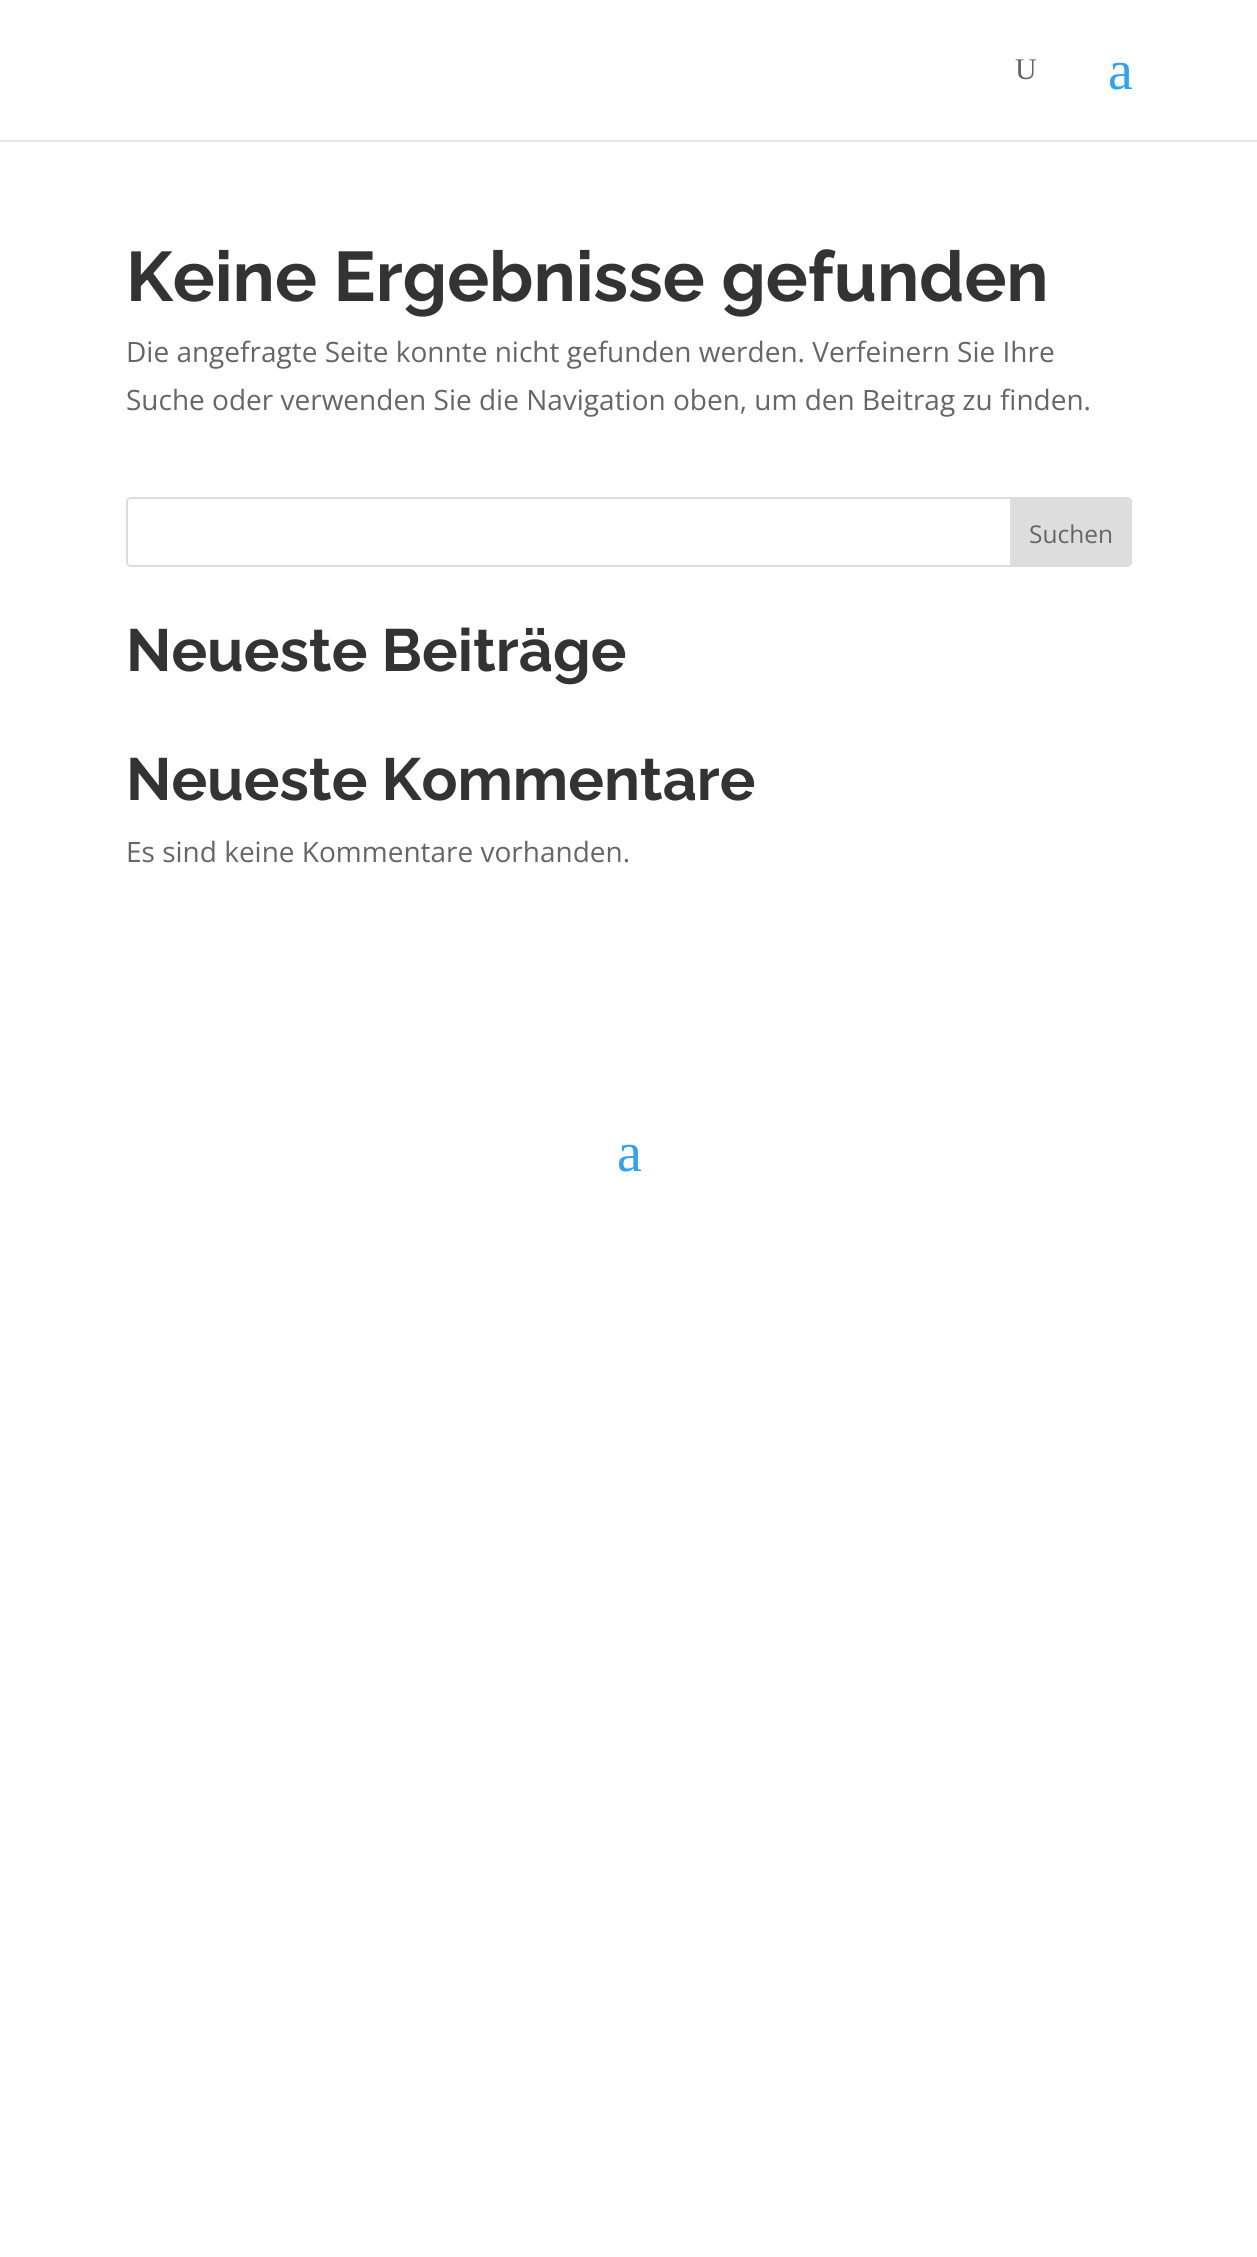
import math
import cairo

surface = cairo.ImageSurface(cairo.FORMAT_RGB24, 1257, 2257)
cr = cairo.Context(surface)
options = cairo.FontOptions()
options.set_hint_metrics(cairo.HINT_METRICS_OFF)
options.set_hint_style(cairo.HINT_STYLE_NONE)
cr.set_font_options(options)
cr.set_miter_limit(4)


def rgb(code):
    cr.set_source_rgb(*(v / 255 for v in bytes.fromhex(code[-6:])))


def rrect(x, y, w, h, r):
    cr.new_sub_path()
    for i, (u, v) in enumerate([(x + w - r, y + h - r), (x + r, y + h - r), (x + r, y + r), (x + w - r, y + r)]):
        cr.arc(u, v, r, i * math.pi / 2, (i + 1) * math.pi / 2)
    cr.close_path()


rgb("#ffffff")
cr.paint()
rgb("#e6e6e6")
cr.rectangle(0, 140, 1257, 2)
cr.fill()
rrect(127, 498, 1004, 68, 4)
rgb("#dddddd")
cr.stroke()
cr.new_path()
cr.move_to(1011, 498)
cr.line_to(1127, 498)
cr.curve_to(1129, 498, 1131, 500, 1131, 502)
cr.line_to(1131, 562)
cr.curve_to(1131, 564, 1129, 566, 1127, 566)
cr.line_to(1011, 566)
cr.close_path()
cr.fill_preserve()
cr.stroke()
cr.select_font_face("Liberation Serif")
cr.set_font_size(30)
rgb("#666666")
cr.move_to(1015, 79)
cr.show_text("U")
cr.set_font_size(56)
rgb("#2ea3f2")
cr.move_to(1108, 89)
cr.show_text("a")
cr.select_font_face("Raleway", cairo.FONT_SLANT_NORMAL, cairo.FONT_WEIGHT_BOLD)
cr.set_font_size(70)
rgb("#333333")
cr.move_to(126, 301)
cr.show_text("Keine Ergebnisse gefunden")
cr.select_font_face("Open Sans")
cr.set_font_size(28)
rgb("#666666")
cr.move_to(126, 362)
cr.show_text("Die angefragte Seite konnte nicht gefunden werden. Verfeinern Sie Ihre")
cr.move_to(126, 410)
cr.show_text("Suche oder verwenden Sie die Navigation oben, um den Beitrag zu finden.")
cr.set_font_size(24.5)
cr.move_to(1029, 543)
cr.show_text("Suchen")
cr.select_font_face("Raleway", cairo.FONT_SLANT_NORMAL, cairo.FONT_WEIGHT_BOLD)
cr.set_font_size(59.5)
rgb("#333333")
cr.move_to(126, 671)
cr.show_text("Neueste Beiträge")
cr.move_to(126, 800)
cr.show_text("Neueste Kommentare")
cr.select_font_face("Open Sans")
cr.set_font_size(28)
rgb("#666666")
cr.move_to(126, 862)
cr.show_text("Es sind keine Kommentare vorhanden.")
cr.select_font_face("Liberation Serif")
cr.set_font_size(56)
rgb("#2ea3f2")
cr.move_to(617, 1171)
cr.show_text("a")
surface.write_to_png("page.png")
